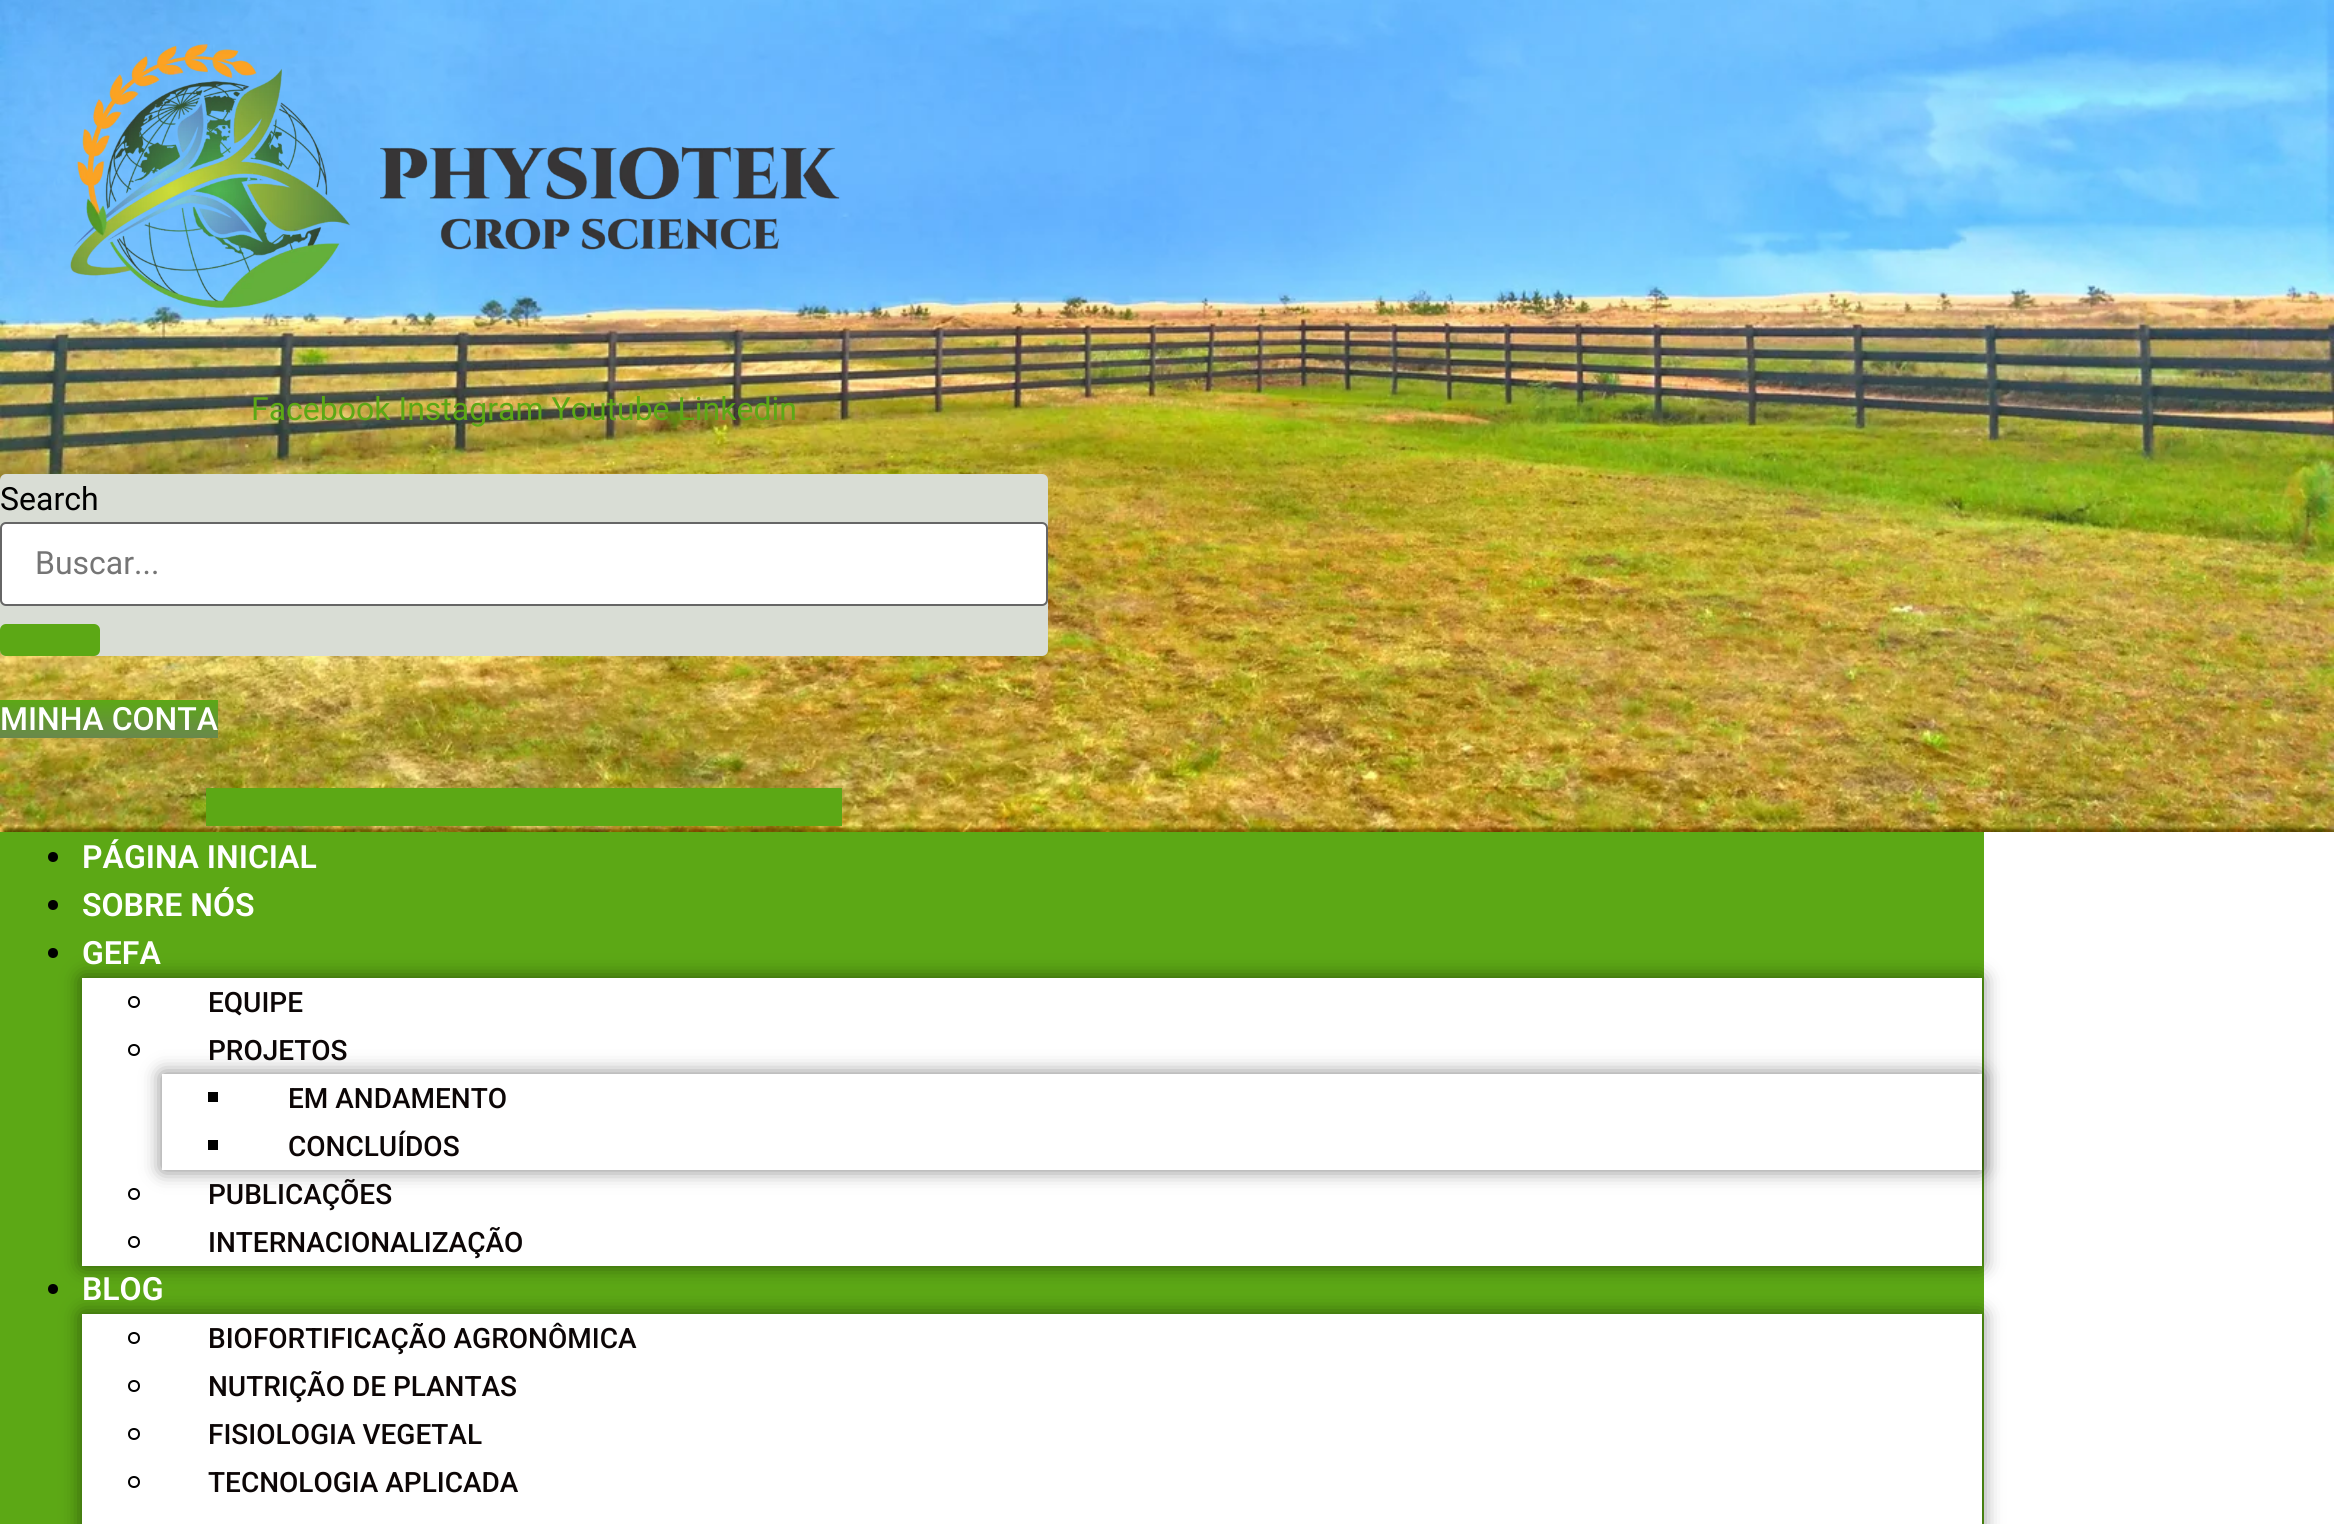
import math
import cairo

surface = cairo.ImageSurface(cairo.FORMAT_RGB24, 2334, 1524)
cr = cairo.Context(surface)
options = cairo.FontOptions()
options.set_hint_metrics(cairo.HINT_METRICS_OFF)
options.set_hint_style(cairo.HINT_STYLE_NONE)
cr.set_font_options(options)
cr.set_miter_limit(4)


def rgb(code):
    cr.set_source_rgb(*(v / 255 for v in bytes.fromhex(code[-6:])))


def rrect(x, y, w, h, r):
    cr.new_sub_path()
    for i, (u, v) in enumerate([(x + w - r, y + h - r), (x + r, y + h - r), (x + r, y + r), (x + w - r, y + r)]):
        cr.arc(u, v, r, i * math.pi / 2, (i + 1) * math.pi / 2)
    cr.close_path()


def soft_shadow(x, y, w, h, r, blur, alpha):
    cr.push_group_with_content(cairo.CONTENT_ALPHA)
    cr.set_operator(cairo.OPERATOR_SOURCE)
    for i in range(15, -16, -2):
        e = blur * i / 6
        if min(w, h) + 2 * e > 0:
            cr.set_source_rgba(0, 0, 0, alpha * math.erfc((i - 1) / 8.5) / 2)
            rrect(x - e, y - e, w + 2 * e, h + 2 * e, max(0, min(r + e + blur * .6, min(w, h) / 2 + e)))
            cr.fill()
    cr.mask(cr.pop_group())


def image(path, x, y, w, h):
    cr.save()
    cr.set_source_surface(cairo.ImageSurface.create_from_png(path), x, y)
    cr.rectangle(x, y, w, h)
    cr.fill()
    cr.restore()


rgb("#ffffff")
cr.paint()
image("img/1.png", 0, 0, 2334, 832)
image("img/2.png", 70, 44, 770, 264)
rgb("#d9ddd5")
rrect(0, 474, 1048, 182, 6)
cr.fill()
rgb("#ffffff")
rrect(1, 523, 1046, 82, 5)
cr.fill_preserve()
rgb("#666666")
cr.stroke()
rgb("#5ca815")
rrect(0, 624, 100, 32, 6)
cr.fill()
gradient = cairo.LinearGradient(109, 700, 109, 738)
gradient.add_color_stop_rgba(0, 0.361, 0.659, 0.082, 1)
gradient.add_color_stop_rgba(1, 0.412, 0.533, 0.298, 1)
cr.set_source(gradient)
cr.rectangle(0, 700, 218, 38)
cr.fill()
rgb("#5ca815")
cr.rectangle(206, 788, 636, 38)
cr.fill()
cr.rectangle(0, 832, 1984, 692)
cr.fill()
rgb("#000000")
cr.arc(53, 857, 5, 0, 2 * math.pi)
cr.fill()
cr.arc(53, 905, 5, 0, 2 * math.pi)
cr.fill()
rgb("#000000")
soft_shadow(82, 978, 1900, 288, 0, 10, 0.5)
rgb("#000000")
cr.arc(53, 953, 5, 0, 2 * math.pi)
cr.fill()
rgb("#ffffff")
cr.rectangle(82, 978, 1900, 288)
cr.fill()
cr.arc(134, 1002, 5, 0, 2 * math.pi)
rgb("#000000")
cr.stroke()
cr.save()
cr.set_fill_rule(cairo.FILL_RULE_EVEN_ODD)
cr.new_path()
cr.move_to(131, 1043)
cr.line_to(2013, 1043)
cr.line_to(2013, 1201)
cr.line_to(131, 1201)
cr.close_path()
cr.move_to(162, 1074)
cr.line_to(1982, 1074)
cr.line_to(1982, 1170)
cr.line_to(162, 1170)
cr.close_path()
cr.clip()
rgb("#000000")
soft_shadow(162, 1074, 1820, 96, 0, 10, 0.5)
cr.restore()
cr.arc(134, 1050, 5, 0, 2 * math.pi)
cr.stroke()
cr.rectangle(208, 1092, 10, 10)
cr.fill()
cr.rectangle(208, 1140, 10, 10)
cr.fill()
cr.arc(134, 1194, 5, 0, 2 * math.pi)
cr.stroke()
cr.arc(134, 1242, 5, 0, 2 * math.pi)
cr.stroke()
rgb("#000000")
soft_shadow(82, 1314, 1900, 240, 0, 10, 0.5)
rgb("#000000")
cr.arc(53, 1289, 5, 0, 2 * math.pi)
cr.fill()
rgb("#ffffff")
cr.rectangle(82, 1314, 1900, 210)
cr.fill()
cr.arc(134, 1338, 5, 0, 2 * math.pi)
rgb("#000000")
cr.stroke()
cr.arc(134, 1386, 5, 0, 2 * math.pi)
cr.stroke()
cr.arc(134, 1434, 5, 0, 2 * math.pi)
cr.stroke()
cr.arc(134, 1482, 5, 0, 2 * math.pi)
cr.stroke()
cr.select_font_face("Roboto")
cr.set_font_size(32)
rgb("#5ca815")
cr.move_to(251, 420)
cr.show_text("Facebook Instagram Youtube Linkedin")
rgb("#000000")
cr.move_to(0, 510)
cr.show_text("Search")
rgb("#757575")
cr.move_to(35, 574)
cr.show_text("Buscar...")
cr.select_font_face("Roboto Medium")
rgb("#ffffff")
cr.move_to(0, 730)
cr.show_text("MINHA CONTA")
cr.select_font_face("Roboto SemiBold")
for x, y, s in [
    (82, 868, "PÁGINA INICIAL"),
    (82, 916, "SOBRE NÓS"),
    (82, 964, "GEFA"),
]:
    cr.move_to(x, y)
    cr.show_text(s)
cr.select_font_face("Roboto Medium")
cr.set_font_size(28)
rgb("#0c0606")
for x, y, s in [
    (208, 1012, "EQUIPE"),
    (208, 1060, "PROJETOS"),
    (288, 1108, "EM ANDAMENTO"),
    (288, 1156, "CONCLUÍDOS"),
    (208, 1204, "PUBLICAÇÕES"),
    (208, 1252, "INTERNACIONALIZAÇÃO"),
]:
    cr.move_to(x, y)
    cr.show_text(s)
cr.select_font_face("Roboto SemiBold")
cr.set_font_size(32)
rgb("#ffffff")
cr.move_to(82, 1300)
cr.show_text("BLOG")
cr.select_font_face("Roboto Medium")
cr.set_font_size(28)
rgb("#0c0606")
for x, y, s in [
    (208, 1348, "BIOFORTIFICAÇÃO AGRONÔMICA"),
    (208, 1396, "NUTRIÇÃO DE PLANTAS"),
    (208, 1444, "FISIOLOGIA VEGETAL"),
    (208, 1492, "TECNOLOGIA APLICADA"),
]:
    cr.move_to(x, y)
    cr.show_text(s)
surface.write_to_png("page.png")
